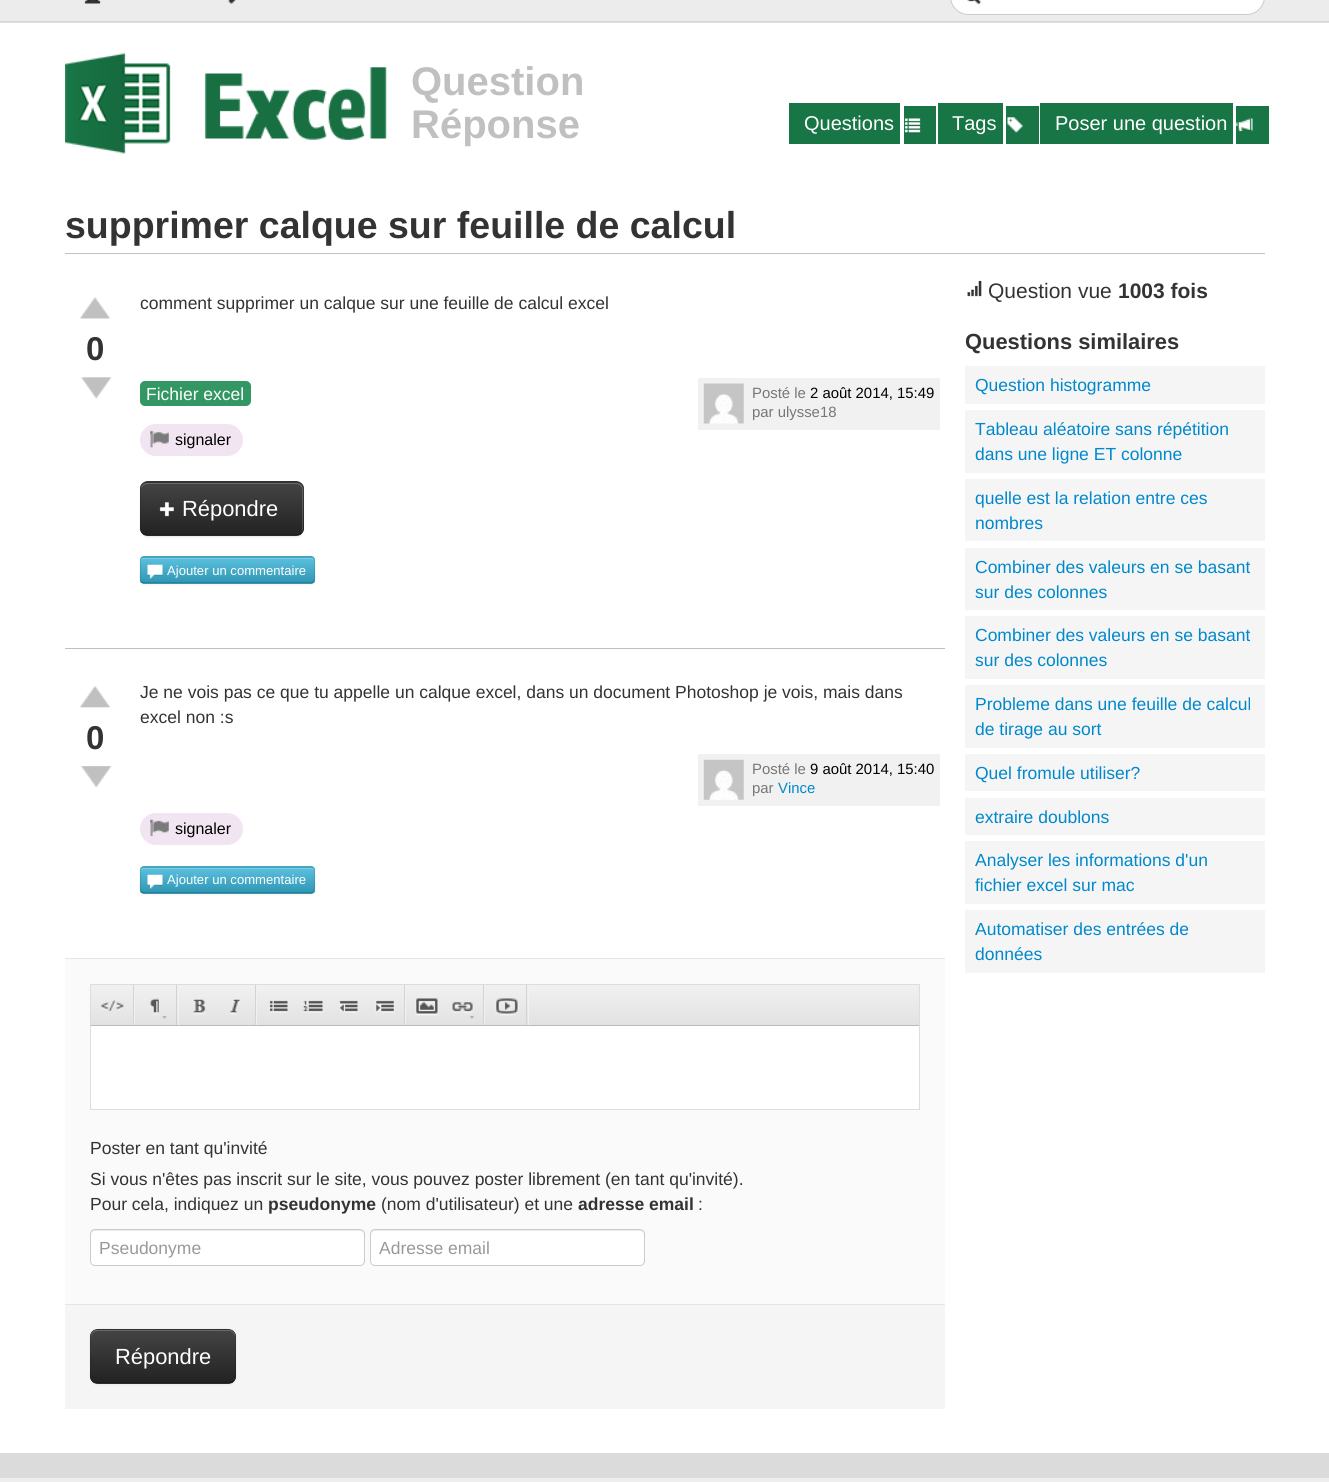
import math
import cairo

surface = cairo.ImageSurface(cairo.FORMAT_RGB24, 1329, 1482)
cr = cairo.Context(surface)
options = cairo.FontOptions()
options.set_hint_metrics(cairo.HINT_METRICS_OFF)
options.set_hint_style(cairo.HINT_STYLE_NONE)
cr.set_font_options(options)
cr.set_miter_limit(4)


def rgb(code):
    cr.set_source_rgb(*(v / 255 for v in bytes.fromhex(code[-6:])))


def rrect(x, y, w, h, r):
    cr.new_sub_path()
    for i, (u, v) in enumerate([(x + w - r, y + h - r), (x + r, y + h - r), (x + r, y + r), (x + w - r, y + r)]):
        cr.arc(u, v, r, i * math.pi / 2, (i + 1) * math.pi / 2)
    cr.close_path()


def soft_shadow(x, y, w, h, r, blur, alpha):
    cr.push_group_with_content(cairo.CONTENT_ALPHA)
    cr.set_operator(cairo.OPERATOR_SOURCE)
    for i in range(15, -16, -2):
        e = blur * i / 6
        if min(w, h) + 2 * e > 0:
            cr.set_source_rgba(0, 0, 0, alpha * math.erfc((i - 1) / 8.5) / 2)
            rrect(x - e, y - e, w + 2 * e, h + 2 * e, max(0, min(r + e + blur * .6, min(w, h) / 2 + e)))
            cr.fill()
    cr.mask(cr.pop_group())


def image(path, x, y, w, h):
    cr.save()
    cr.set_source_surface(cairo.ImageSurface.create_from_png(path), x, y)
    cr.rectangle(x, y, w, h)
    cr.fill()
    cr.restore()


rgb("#eeeeee")
cr.paint()
rgb("#000000")
soft_shadow(0, -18, 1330, 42, 0, 6, 0.1)
rgb("#ececec")
cr.rectangle(0, 0, 1329, 21)
cr.fill()
rgb("#d4d4d4")
cr.rectangle(0, 21, 1329, 1)
cr.fill()
image("img/1.png", 84, 0, 17, 4)
image("img/2.png", 228, 0, 8, 4)
rgb("#ffffff")
rrect(950.5, -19.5, 314, 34, 18)
cr.fill_preserve()
rgb("#cccccc")
cr.set_line_width(1)
cr.stroke()
image("img/3.png", 967, 0, 15, 5)
rgb("#ffffff")
cr.rectangle(0, 23, 1329, 1430)
cr.fill()
rgb("#dbdbdb")
cr.rectangle(0, 1453, 1329, 25)
cr.fill()
image("img/4.png", 65, 53, 322, 101)
rgb("#187545")
cr.rectangle(789, 103, 111, 41)
cr.fill()
cr.rectangle(904, 106, 32, 38)
cr.fill()
image("img/5.png", 904, 118, 17, 16)
cr.rectangle(938, 103, 65, 41)
cr.fill()
cr.rectangle(1006, 106, 33, 38)
cr.fill()
image("img/6.png", 1007, 117, 16, 16)
cr.rectangle(1040, 103, 193, 41)
cr.fill()
cr.rectangle(1236, 106, 33, 38)
cr.fill()
image("img/7.png", 1236, 118, 17, 14)
rgb("#c0c0c0")
cr.rectangle(65, 253, 1200, 1)
cr.fill()
image("img/8.png", 80, 297, 30, 22)
image("img/9.png", 81, 377, 31, 22)
rgb("#329763")
rrect(140, 381, 111, 25, 5)
cr.fill()
rgb("#f1f1f1")
cr.rectangle(698, 378, 242, 52)
cr.fill()
image("img/10.png", 703, 383, 41, 41)
rgb("#f0e5f1")
rrect(140, 424, 103, 32, 16)
cr.fill()
image("img/11.png", 150, 430, 19, 18)
rgb("#000000")
soft_shadow(140, 483, 164, 55, 8, 1, 0.05)
rgb("#363636")
rrect(140, 481, 164, 55, 8)
cr.fill()
cr.save()
rrect(140, 481, 164, 55, 8)
cr.clip()
gradient = cairo.LinearGradient(222, 483, 222, 535)
gradient.add_color_stop_rgba(0, 0.267, 0.267, 0.267, 1)
gradient.add_color_stop_rgba(1, 0.133, 0.133, 0.133, 1)
cr.set_source(gradient)
cr.rectangle(140, 483, 164, 52)
cr.fill()
cr.restore()
cr.set_source_rgba(1, 1, 1, 0.2)
cr.new_path()
cr.move_to(148, 484)
cr.line_to(296, 484)
cr.curve_to(300, 484, 302, 487, 302, 490)
cr.line_to(302, 530)
cr.curve_to(302, 531, 302, 532, 301, 533)
cr.curve_to(302, 532, 303, 531, 303, 529)
cr.line_to(303, 489)
cr.curve_to(303, 486, 300, 483, 297, 483)
cr.line_to(147, 483)
cr.curve_to(144, 483, 141, 486, 141, 489)
cr.line_to(141, 490)
cr.curve_to(141, 487, 144, 484, 148, 484)
cr.close_path()
cr.fill()
cr.new_path()
cr.move_to(301, 533.5)
cr.curve_to(300, 535, 298, 535.5, 296, 535.5)
cr.line_to(147.5, 535.5)
cr.curve_to(145.5, 535.5, 144, 535, 142.5, 533.5)
cr.set_source_rgba(0, 0, 0, 0.25)
cr.set_line_width(1.2)
cr.stroke()
cr.new_path()
cr.move_to(142.5, 533.5)
cr.curve_to(139.5, 530.5, 140.5, 526, 140.5, 522)
cr.line_to(140.5, 495.5)
cr.curve_to(140.5, 490, 140, 482, 147.5, 482)
cr.line_to(271.5, 482)
cr.curve_to(306.5, 482, 303, 476.5, 303, 509)
cr.line_to(303, 522)
cr.curve_to(303, 526, 304, 530.5, 301, 533.5)
cr.set_source_rgba(0, 0, 0, 0.1)
cr.stroke()
image("img/12.png", 159, 502, 15, 15)
rgb("#000000")
soft_shadow(140, 558, 175, 27, 4, 1, 0.05)
rgb("#49afcd")
rrect(140, 556, 175, 28, 4)
cr.fill()
cr.save()
rrect(140, 556, 175, 28, 4)
cr.clip()
gradient = cairo.LinearGradient(228, 558, 228, 583)
gradient.add_color_stop_rgba(0, 0.357, 0.753, 0.871, 1)
gradient.add_color_stop_rgba(1, 0.184, 0.588, 0.706, 1)
cr.set_source(gradient)
cr.rectangle(140, 558, 175, 25)
cr.fill()
cr.restore()
rgb("#7bcce4")
cr.new_path()
cr.move_to(144, 559)
cr.line_to(311, 559)
cr.curve_to(313, 559, 314, 560, 314, 561)
cr.curve_to(314, 559, 313, 558, 312, 558)
cr.line_to(144, 558)
cr.curve_to(142, 558, 141, 559, 141, 561)
cr.curve_to(141, 560, 142, 559, 144, 559)
cr.close_path()
cr.fill()
cr.new_path()
cr.move_to(313.5, 582)
cr.line_to(311, 583)
cr.line_to(144, 583)
cr.line_to(141.5, 582)
cr.set_source_rgba(0, 0, 0, 0.25)
cr.stroke()
cr.new_path()
cr.move_to(141.5, 582)
cr.curve_to(139.5, 580, 140.5, 572.5, 140.5, 570)
cr.line_to(140.5, 563.5)
cr.curve_to(140.5, 561, 140, 557, 144, 557)
cr.line_to(311, 557)
cr.curve_to(315, 557, 314.5, 561, 314.5, 563.5)
cr.line_to(314.5, 570)
cr.curve_to(314.5, 572.5, 315.5, 580, 313.5, 582)
cr.set_source_rgba(0, 0, 0, 0.1)
cr.stroke()
image("img/13.png", 147, 564, 16, 16)
rgb("#c0c0c0")
cr.rectangle(65, 648, 880, 1)
cr.fill()
image("img/14.png", 80, 686, 31, 22)
image("img/15.png", 81, 766, 31, 22)
rgb("#f1f1f1")
cr.rectangle(698, 754, 242, 52)
cr.fill()
image("img/16.png", 703, 759, 41, 41)
rgb("#f0e5f1")
rrect(140, 813, 103, 32, 16)
cr.fill()
image("img/17.png", 150, 819, 19, 18)
rgb("#000000")
soft_shadow(140, 868, 175, 27, 4, 1, 0.05)
rgb("#49afcd")
rrect(140, 866, 175, 28, 4)
cr.fill()
cr.save()
rrect(140, 866, 175, 28, 4)
cr.clip()
gradient = cairo.LinearGradient(228, 868, 228, 893)
gradient.add_color_stop_rgba(0, 0.357, 0.753, 0.871, 1)
gradient.add_color_stop_rgba(1, 0.184, 0.588, 0.706, 1)
cr.set_source(gradient)
cr.rectangle(140, 868, 175, 25)
cr.fill()
cr.restore()
rgb("#7bcce4")
cr.new_path()
cr.move_to(144, 869)
cr.line_to(311, 869)
cr.curve_to(313, 869, 314, 870, 314, 871)
cr.curve_to(314, 869, 313, 868, 312, 868)
cr.line_to(144, 868)
cr.curve_to(142, 868, 141, 869, 141, 871)
cr.curve_to(141, 870, 142, 869, 144, 869)
cr.close_path()
cr.fill()
cr.new_path()
cr.move_to(313.5, 892)
cr.line_to(311, 893)
cr.line_to(144, 893)
cr.line_to(141.5, 892)
cr.set_source_rgba(0, 0, 0, 0.25)
cr.stroke()
cr.new_path()
cr.move_to(141.5, 892)
cr.curve_to(139.5, 890, 140.5, 882.5, 140.5, 880)
cr.line_to(140.5, 873.5)
cr.curve_to(140.5, 871, 140, 867, 144, 867)
cr.line_to(311, 867)
cr.curve_to(315, 867, 314.5, 871, 314.5, 873.5)
cr.line_to(314.5, 880)
cr.curve_to(314.5, 882.5, 315.5, 890, 313.5, 892)
cr.set_source_rgba(0, 0, 0, 0.1)
cr.stroke()
image("img/13.png", 147, 874, 16, 16)
for x, y, w, h, color in [
    (65, 959, 880, 345, "#fafafa"),
    (65, 958, 880, 1, "#e5e5e5"),
    (91, 1026, 828, 83, "#ffffff"),
]:
    rgb(color)
    cr.rectangle(x, y, w, h)
    cr.fill()
cr.rectangle(90.5, 984.5, 829, 125)
rgb("#dddddd")
cr.set_line_width(1)
cr.stroke()
gradient = cairo.LinearGradient(505, 985, 505, 1025)
gradient.add_color_stop_rgba(0, 0.945, 0.945, 0.945, 1)
gradient.add_color_stop_rgba(1, 0.886, 0.886, 0.886, 1)
cr.set_source(gradient)
cr.rectangle(91, 985, 828, 40)
cr.fill()
rgb("#bbbbbb")
cr.rectangle(91, 1025, 828, 1)
cr.fill()
image("img/18.png", 101, 999, 23, 12)
rgb("#f1f1f1")
cr.rectangle(134, 985, 1, 40)
cr.fill()
rgb("#d3d3d3")
cr.rectangle(133, 985, 1, 40)
cr.fill()
image("img/19.png", 150, 998, 17, 21)
rgb("#f1f1f1")
cr.rectangle(178, 985, 1, 40)
cr.fill()
rgb("#d3d3d3")
cr.rectangle(176, 985, 1, 40)
cr.fill()
image("img/20.png", 193, 999, 13, 16)
image("img/21.png", 230, 999, 11, 16)
rgb("#f1f1f1")
cr.rectangle(256, 985, 1, 40)
cr.fill()
rgb("#d3d3d3")
cr.rectangle(255, 985, 1, 40)
cr.fill()
image("img/22.png", 269, 1000, 19, 13)
image("img/23.png", 303, 1000, 20, 13)
image("img/24.png", 339, 1000, 19, 13)
image("img/25.png", 375, 1000, 20, 13)
rgb("#f1f1f1")
cr.rectangle(405, 985, 1, 40)
cr.fill()
rgb("#d3d3d3")
cr.rectangle(404, 985, 1, 40)
cr.fill()
image("img/26.png", 415, 998, 24, 18)
image("img/27.png", 452, 1002, 22, 17)
rgb("#f1f1f1")
cr.rectangle(484, 985, 1, 40)
cr.fill()
rgb("#d3d3d3")
cr.rectangle(483, 985, 1, 40)
cr.fill()
image("img/28.png", 495, 998, 24, 18)
rgb("#f1f1f1")
cr.rectangle(528, 985, 1, 40)
cr.fill()
rgb("#d3d3d3")
cr.rectangle(526, 985, 1, 40)
cr.fill()
rgb("#ffffff")
rrect(90, 1229, 275, 37, 5)
cr.fill()
rgb("#ececec")
cr.new_path()
cr.move_to(95, 1231)
cr.line_to(360, 1231)
cr.curve_to(362, 1231, 364, 1233, 364, 1235)
cr.curve_to(364, 1232, 363, 1230, 360, 1230)
cr.line_to(95, 1230)
cr.curve_to(92, 1230, 91, 1232, 91, 1235)
cr.curve_to(91, 1233, 93, 1231, 95, 1231)
cr.close_path()
cr.fill()
rrect(90.5, 1229.5, 274, 36, 4.5)
rgb("#cccccc")
cr.stroke()
rgb("#ffffff")
rrect(370, 1229, 275, 37, 5)
cr.fill()
rgb("#ececec")
cr.new_path()
cr.move_to(375, 1231)
cr.line_to(640, 1231)
cr.curve_to(642, 1231, 644, 1233, 644, 1235)
cr.curve_to(644, 1232, 643, 1230, 640, 1230)
cr.line_to(375, 1230)
cr.curve_to(372, 1230, 371, 1232, 371, 1235)
cr.curve_to(371, 1233, 373, 1231, 375, 1231)
cr.close_path()
cr.fill()
rrect(370.5, 1229.5, 274, 36, 4.5)
rgb("#cccccc")
cr.stroke()
rgb("#f5f5f5")
cr.rectangle(65, 1305, 880, 104)
cr.fill()
rgb("#e5e5e5")
cr.rectangle(65, 1304, 880, 1)
cr.fill()
rgb("#000000")
soft_shadow(90, 1330, 146, 55, 8, 1, 0.05)
rgb("#363636")
rrect(90, 1329, 146, 55, 8)
cr.fill()
cr.save()
rrect(90, 1329, 146, 55, 8)
cr.clip()
gradient = cairo.LinearGradient(163, 1330, 163, 1383)
gradient.add_color_stop_rgba(0, 0.267, 0.267, 0.267, 1)
gradient.add_color_stop_rgba(1, 0.133, 0.133, 0.133, 1)
cr.set_source(gradient)
cr.rectangle(90, 1330, 146, 53)
cr.fill()
cr.restore()
cr.set_source_rgba(1, 1, 1, 0.2)
cr.new_path()
cr.move_to(98, 1331)
cr.line_to(229, 1331)
cr.curve_to(232, 1331, 235, 1334, 235, 1338)
cr.line_to(235, 1336)
cr.curve_to(235, 1333, 232, 1330, 229, 1330)
cr.line_to(97, 1330)
cr.curve_to(94, 1330, 91, 1333, 91, 1336)
cr.line_to(91, 1338)
cr.curve_to(91, 1334, 94, 1331, 98, 1331)
cr.close_path()
cr.fill()
cr.new_path()
cr.move_to(233.5, 1381)
cr.curve_to(232.5, 1382.5, 230.5, 1383, 229, 1383)
cr.line_to(97.5, 1383)
cr.curve_to(95.5, 1383, 94, 1382.5, 92.5, 1381)
cr.set_source_rgba(0, 0, 0, 0.25)
cr.set_line_width(1.2)
cr.stroke()
cr.new_path()
cr.move_to(92.5, 1381)
cr.curve_to(89.5, 1378, 90.5, 1373.5, 90.5, 1369.5)
cr.line_to(90.5, 1356)
cr.curve_to(90.5, 1325, 86.5, 1329.5, 119.5, 1329.5)
cr.line_to(207, 1329.5)
cr.curve_to(239.5, 1329.5, 235.5, 1325, 235.5, 1356)
cr.line_to(235.5, 1369.5)
cr.curve_to(235.5, 1373.5, 236.5, 1378, 233.5, 1381)
cr.set_source_rgba(0, 0, 0, 0.1)
cr.stroke()
image("img/29.png", 967, 280, 15, 17)
for x, y, w, h, color in [
    (965, 366, 300, 38, "#f5f5f5"),
    (965, 410, 300, 63, "#f5f5f5"),
    (965, 479, 300, 62, "#f5f5f5"),
    (965, 548, 300, 62, "#f5f5f5"),
    (965, 616, 300, 63, "#f5f5f5"),
    (965, 685, 300, 63, "#f5f5f5"),
    (965, 754, 300, 37, "#f5f5f5"),
    (965, 798, 300, 37, "#f5f5f5"),
    (965, 841, 300, 63, "#f5f5f5"),
    (965, 910, 300, 63, "#f5f5f5"),
]:
    rgb(color)
    cr.rectangle(x, y, w, h)
    cr.fill()
cr.select_font_face("Liberation Sans", cairo.FONT_SLANT_NORMAL, cairo.FONT_WEIGHT_BOLD)
cr.set_font_size(40)
rgb("#c0c0c0")
cr.move_to(411, 95)
cr.show_text("Question")
cr.move_to(411, 138)
cr.show_text("Réponse")
cr.select_font_face("Liberation Sans")
cr.set_font_size(20)
rgb("#ffffff")
for x, y, s in [
    (804, 130, "Questions"),
    (952, 130, "Tags"),
    (1055, 130, "Poser une question"),
]:
    cr.move_to(x, y)
    cr.show_text(s)
cr.select_font_face("Liberation Sans", cairo.FONT_SLANT_NORMAL, cairo.FONT_WEIGHT_BOLD)
cr.set_font_size(37.5)
rgb("#333333")
cr.move_to(65, 238)
cr.show_text("supprimer calque sur feuille de calcul")
cr.set_font_size(33)
cr.move_to(86, 360)
cr.show_text("0")
cr.select_font_face("Liberation Sans")
cr.set_font_size(17.5)
cr.move_to(140, 309)
cr.show_text("comment supprimer un calque sur une feuille de calcul excel")
rgb("#ffffff")
cr.move_to(146, 400)
cr.show_text("Fichier excel")
cr.set_font_size(14.9)
rgb("#777777")
cr.move_to(752, 398)
cr.show_text("Posté le")
rgb("#000000")
cr.move_to(810, 398)
cr.show_text("2 août 2014, 15:49")
rgb("#777777")
cr.move_to(752, 417)
cr.show_text("par ulysse18")
cr.set_font_size(16)
rgb("#000000")
cr.move_to(175, 445)
cr.show_text("signaler")
cr.set_font_size(21.9)
rgb("#ffffff")
cr.move_to(182, 516)
cr.show_text("Répondre")
cr.set_font_size(13.1)
cr.move_to(167, 575)
cr.show_text("Ajouter un commentaire")
cr.select_font_face("Liberation Sans", cairo.FONT_SLANT_NORMAL, cairo.FONT_WEIGHT_BOLD)
cr.set_font_size(33)
rgb("#333333")
cr.move_to(86, 749)
cr.show_text("0")
cr.select_font_face("Liberation Sans")
cr.set_font_size(17.5)
cr.move_to(140, 698)
cr.show_text("Je ne vois pas ce que tu appelle un calque excel, dans un document Photoshop je vois, mais dans")
cr.move_to(140, 723)
cr.show_text("excel non :s")
cr.set_font_size(14.9)
rgb("#777777")
cr.move_to(752, 774)
cr.show_text("Posté le")
rgb("#000000")
cr.move_to(810, 774)
cr.show_text("9 août 2014, 15:40")
rgb("#777777")
cr.move_to(752, 793)
cr.show_text("par")
rgb("#0088cc")
cr.move_to(778, 793)
cr.show_text("Vince")
cr.set_font_size(16)
rgb("#000000")
cr.move_to(175, 834)
cr.show_text("signaler")
cr.set_font_size(13.1)
rgb("#ffffff")
cr.move_to(167, 884)
cr.show_text("Ajouter un commentaire")
cr.set_font_size(17.5)
rgb("#333333")
for x, y, s in [
    (90, 1154, "Poster en tant qu'invité"),
    (90, 1185, "Si vous n'êtes pas inscrit sur le site, vous pouvez poster librement (en tant qu'invité)."),
    (90, 1210, "Pour cela, indiquez un"),
]:
    cr.move_to(x, y)
    cr.show_text(s)
cr.select_font_face("Liberation Sans", cairo.FONT_SLANT_NORMAL, cairo.FONT_WEIGHT_BOLD)
cr.move_to(268, 1210)
cr.show_text("pseudonyme")
cr.select_font_face("Liberation Sans")
cr.move_to(381, 1210)
cr.show_text("(nom d'utilisateur) et une")
cr.select_font_face("Liberation Sans", cairo.FONT_SLANT_NORMAL, cairo.FONT_WEIGHT_BOLD)
cr.move_to(578, 1210)
cr.show_text("adresse email")
cr.select_font_face("Liberation Sans")
cr.move_to(698, 1210)
cr.show_text(":")
rgb("#999999")
cr.move_to(99, 1254)
cr.show_text("Pseudonyme")
cr.move_to(379, 1254)
cr.show_text("Adresse email")
cr.set_font_size(21.9)
rgb("#ffffff")
cr.move_to(115, 1364)
cr.show_text("Répondre")
cr.set_font_size(21)
rgb("#333333")
cr.move_to(988, 298)
cr.show_text("Question vue")
cr.select_font_face("Liberation Sans", cairo.FONT_SLANT_NORMAL, cairo.FONT_WEIGHT_BOLD)
cr.move_to(1118, 298)
cr.show_text("1003 fois")
cr.set_font_size(21.9)
cr.move_to(965, 349)
cr.show_text("Questions similaires")
cr.select_font_face("Liberation Sans")
cr.set_font_size(17.5)
rgb("#0088cc")
for x, y, s in [
    (975, 391, "Question histogramme"),
    (975, 435, "Tableau aléatoire sans répétition"),
    (975, 460, "dans une ligne ET colonne"),
    (975, 504, "quelle est la relation entre ces"),
    (975, 529, "nombres"),
    (975, 573, "Combiner des valeurs en se basant"),
    (975, 598, "sur des colonnes"),
    (975, 641, "Combiner des valeurs en se basant"),
    (975, 666, "sur des colonnes"),
    (975, 710, "Probleme dans une feuille de calcul"),
    (975, 735, "de tirage au sort"),
    (975, 779, "Quel fromule utiliser?"),
    (975, 823, "extraire doublons"),
    (975, 866, "Analyser les informations d'un"),
    (975, 891, "fichier excel sur mac"),
    (975, 935, "Automatiser des entrées de"),
    (975, 960, "données"),
]:
    cr.move_to(x, y)
    cr.show_text(s)
surface.write_to_png("page.png")
